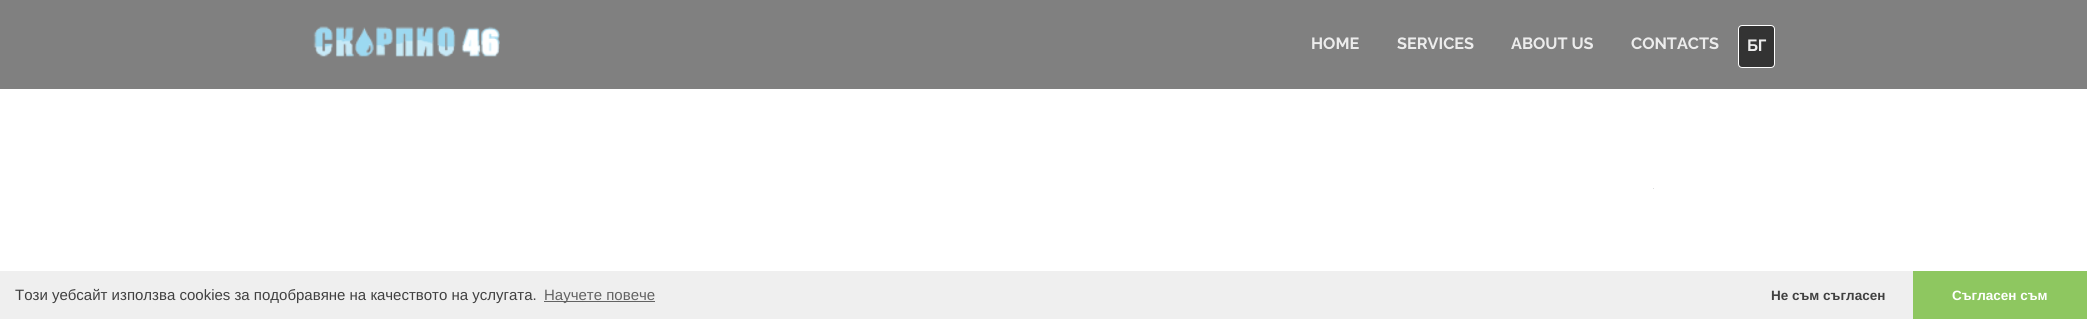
import math
import cairo

surface = cairo.ImageSurface(cairo.FORMAT_RGB24, 2087, 319)
cr = cairo.Context(surface)
options = cairo.FontOptions()
options.set_hint_metrics(cairo.HINT_METRICS_OFF)
options.set_hint_style(cairo.HINT_STYLE_NONE)
cr.set_font_options(options)
cr.set_miter_limit(4)


def rgb(code):
    cr.set_source_rgb(*(v / 255 for v in bytes.fromhex(code[-6:])))


def rrect(x, y, w, h, r):
    cr.new_sub_path()
    for i, (u, v) in enumerate([(x + w - r, y + h - r), (x + r, y + h - r), (x + r, y + r), (x + w - r, y + r)]):
        cr.arc(u, v, r, i * math.pi / 2, (i + 1) * math.pi / 2)
    cr.close_path()


def image(path, x, y, w, h):
    cr.save()
    cr.set_source_surface(cairo.ImageSurface.create_from_png(path), x, y)
    cr.rectangle(x, y, w, h)
    cr.fill()
    cr.restore()


rgb("#ffffff")
cr.paint()
rgb("#808080")
cr.rectangle(0, 0, 2087, 89)
cr.fill()
image("img/1.png", 313, 26, 187, 31)
rgb("#333333")
rrect(1738.5, 25.5, 36, 42, 3.5)
cr.fill_preserve()
rgb("#ffffff")
cr.set_line_width(1)
cr.stroke()
for x, y, w, h, color in [
    (1653, 188, 1, 1, "#dcdddd"),
    (0, 271, 1913, 48, "#efefef"),
    (544, 301, 111, 1, "#636363"),
    (1913, 271, 174, 48, "#8ec760"),
]:
    rgb(color)
    cr.rectangle(x, y, w, h)
    cr.fill()
cr.select_font_face("Raleway", cairo.FONT_SLANT_NORMAL, cairo.FONT_WEIGHT_BOLD)
cr.set_font_size(16.25)
rgb("#ececec")
for x, y, s in [
    (1311, 49, "HOME"),
    (1397, 49, "SERVICES"),
    (1511, 49, "ABOUT US"),
    (1631, 49, "CONTACTS"),
    (1747, 51, "БГ"),
]:
    cr.move_to(x, y)
    cr.show_text(s)
cr.select_font_face("Liberation Sans")
cr.set_font_size(15)
rgb("#404040")
cr.move_to(15, 300)
cr.show_text("Този уебсайт използва cookies за подобравяне на качеството на услугата.")
rgb("#636363")
cr.move_to(544, 300)
cr.show_text("Научете повече")
cr.select_font_face("Liberation Sans", cairo.FONT_SLANT_NORMAL, cairo.FONT_WEIGHT_BOLD)
cr.set_font_size(13.5)
rgb("#404040")
cr.move_to(1771, 300)
cr.show_text("Не съм съгласен")
rgb("#ffffff")
cr.move_to(1952, 300)
cr.show_text("Съгласен съм")
surface.write_to_png("page.png")
